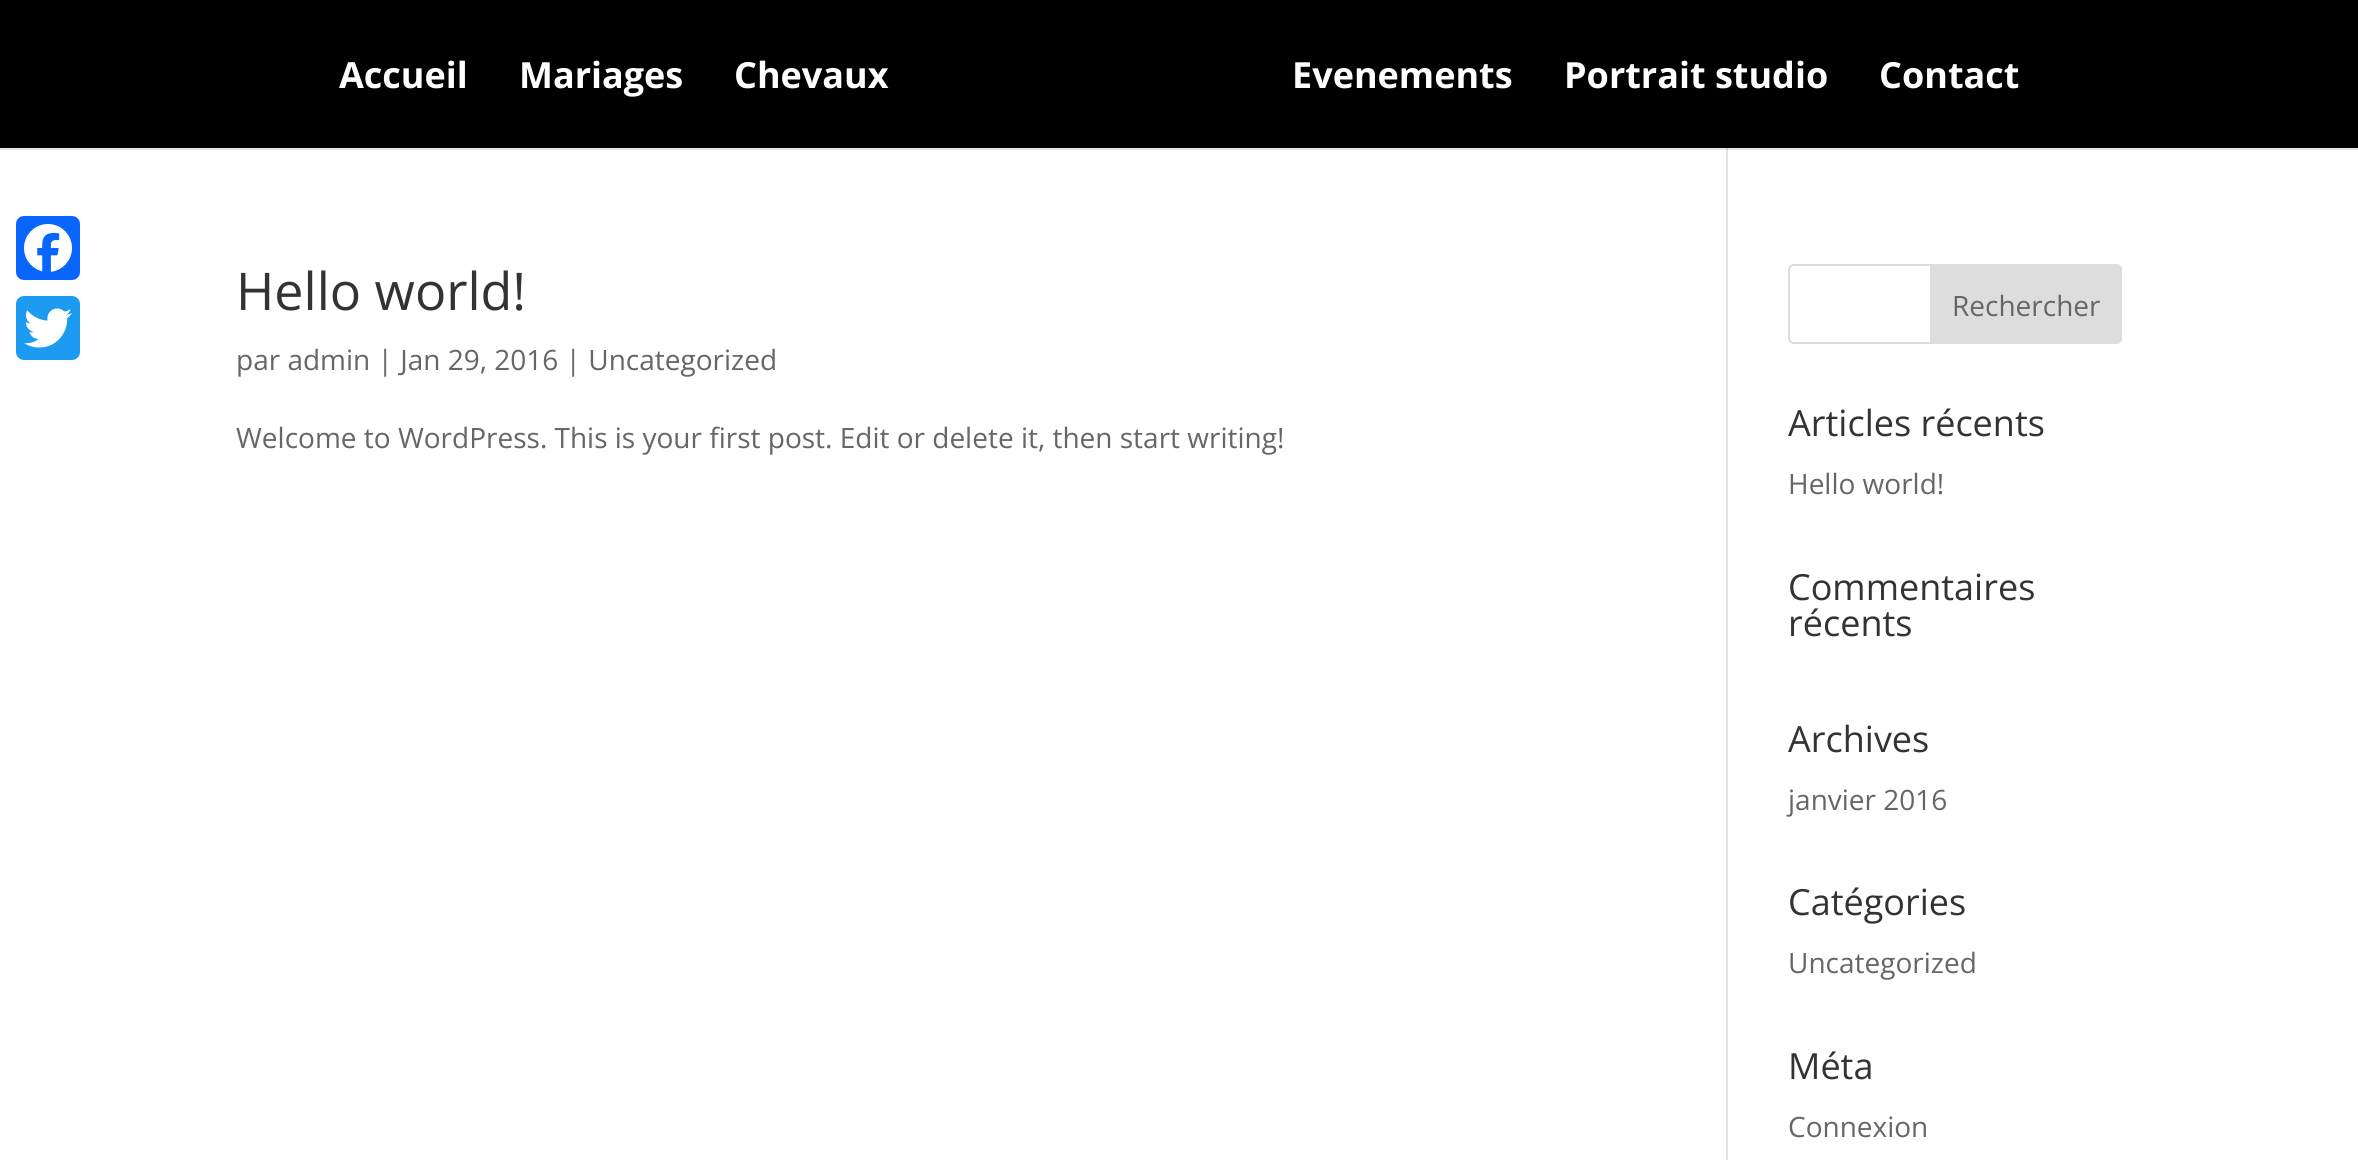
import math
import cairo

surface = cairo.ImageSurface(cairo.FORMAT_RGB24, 2358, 1160)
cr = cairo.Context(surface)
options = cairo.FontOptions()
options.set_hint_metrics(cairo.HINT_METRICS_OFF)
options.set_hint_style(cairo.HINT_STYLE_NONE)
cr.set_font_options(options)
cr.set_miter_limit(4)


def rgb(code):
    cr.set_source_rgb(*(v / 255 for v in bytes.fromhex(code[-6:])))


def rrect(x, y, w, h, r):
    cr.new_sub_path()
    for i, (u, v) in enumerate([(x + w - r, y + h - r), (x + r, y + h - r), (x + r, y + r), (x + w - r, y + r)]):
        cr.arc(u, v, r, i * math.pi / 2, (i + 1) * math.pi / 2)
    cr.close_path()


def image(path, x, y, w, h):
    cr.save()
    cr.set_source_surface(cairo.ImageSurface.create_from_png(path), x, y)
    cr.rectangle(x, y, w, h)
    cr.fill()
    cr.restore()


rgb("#000000")
cr.paint()
rgb("#ffffff")
cr.rectangle(0, 150, 2358, 1010)
cr.fill()
rgb("#0866ff")
rrect(16, 216, 64, 64, 8)
cr.fill()
image("img/1.png", 24, 224, 48, 48)
rgb("#1d9bf0")
rrect(16, 296, 64, 64, 8)
cr.fill()
image("img/2.png", 24, 308, 48, 40)
for x, y, w, h, color in [
    (0, 148, 2358, 2, "#e6e6e6"),
    (1726, 148, 2, 1012, "#e2e2e2"),
    (1726, 148, 2, 2, "#cbcbcb"),
]:
    rgb(color)
    cr.rectangle(x, y, w, h)
    cr.fill()
rrect(1789, 265, 332, 78, 5)
rgb("#dddddd")
cr.stroke()
cr.new_path()
cr.move_to(1931, 265)
cr.line_to(2116, 265)
cr.curve_to(2119, 265, 2121, 267, 2121, 270)
cr.line_to(2121, 338)
cr.curve_to(2121, 341, 2119, 343, 2116, 343)
cr.line_to(1931, 343)
cr.close_path()
cr.fill_preserve()
cr.stroke()
cr.select_font_face("Open Sans", cairo.FONT_SLANT_NORMAL, cairo.FONT_WEIGHT_BOLD)
cr.set_font_size(36)
rgb("#ffffff")
for x, y, s in [
    (339, 88, "Accueil"),
    (519, 88, "Mariages"),
    (734, 88, "Chevaux"),
    (1292, 88, "Evenements"),
    (1564, 88, "Portrait studio"),
    (1879, 88, "Contact"),
]:
    cr.move_to(x, y)
    cr.show_text(s)
cr.select_font_face("Open Sans")
cr.set_font_size(52)
rgb("#333333")
cr.move_to(236, 310)
cr.show_text("Hello world!")
cr.set_font_size(28)
rgb("#666666")
for x, y, s in [
    (236, 370, "par admin | Jan 29, 2016 | Uncategorized"),
    (236, 448, "Welcome to WordPress. This is your first post. Edit or delete it, then start writing!"),
    (1952, 316, "Rechercher"),
]:
    cr.move_to(x, y)
    cr.show_text(s)
cr.set_font_size(36)
rgb("#333333")
cr.move_to(1788, 436)
cr.show_text("Articles récents")
cr.set_font_size(28)
rgb("#666666")
cr.move_to(1788, 494)
cr.show_text("Hello world!")
cr.set_font_size(36)
rgb("#333333")
for x, y, s in [
    (1788, 600, "Commentaires"),
    (1788, 636, "récents"),
    (1788, 752, "Archives"),
]:
    cr.move_to(x, y)
    cr.show_text(s)
cr.set_font_size(28)
rgb("#666666")
cr.move_to(1788, 810)
cr.show_text("janvier 2016")
cr.set_font_size(36)
rgb("#333333")
cr.move_to(1788, 915)
cr.show_text("Catégories")
cr.set_font_size(28)
rgb("#666666")
cr.move_to(1788, 973)
cr.show_text("Uncategorized")
cr.set_font_size(36)
rgb("#333333")
cr.move_to(1788, 1079)
cr.show_text("Méta")
cr.set_font_size(28)
rgb("#666666")
cr.move_to(1788, 1137)
cr.show_text("Connexion")
surface.write_to_png("page.png")
